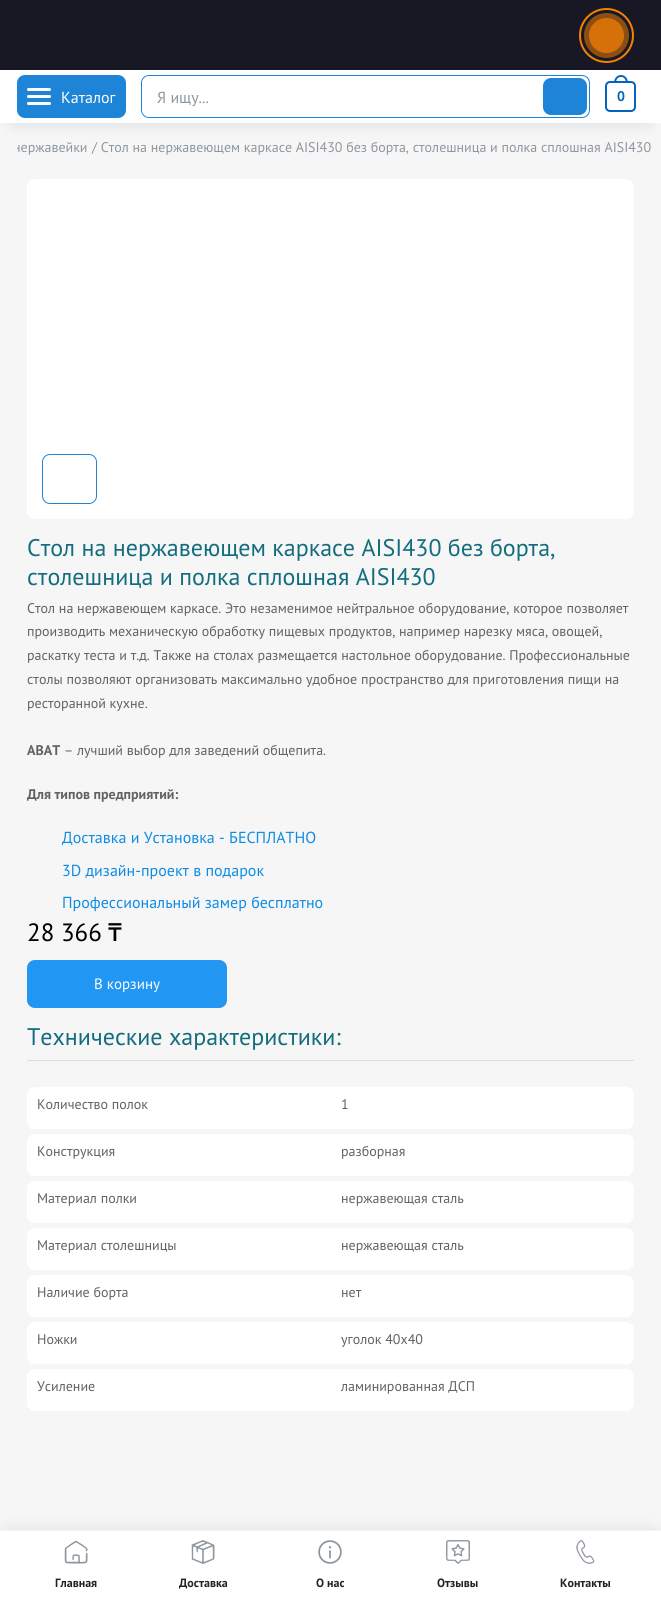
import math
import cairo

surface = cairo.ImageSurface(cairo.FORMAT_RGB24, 661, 1602)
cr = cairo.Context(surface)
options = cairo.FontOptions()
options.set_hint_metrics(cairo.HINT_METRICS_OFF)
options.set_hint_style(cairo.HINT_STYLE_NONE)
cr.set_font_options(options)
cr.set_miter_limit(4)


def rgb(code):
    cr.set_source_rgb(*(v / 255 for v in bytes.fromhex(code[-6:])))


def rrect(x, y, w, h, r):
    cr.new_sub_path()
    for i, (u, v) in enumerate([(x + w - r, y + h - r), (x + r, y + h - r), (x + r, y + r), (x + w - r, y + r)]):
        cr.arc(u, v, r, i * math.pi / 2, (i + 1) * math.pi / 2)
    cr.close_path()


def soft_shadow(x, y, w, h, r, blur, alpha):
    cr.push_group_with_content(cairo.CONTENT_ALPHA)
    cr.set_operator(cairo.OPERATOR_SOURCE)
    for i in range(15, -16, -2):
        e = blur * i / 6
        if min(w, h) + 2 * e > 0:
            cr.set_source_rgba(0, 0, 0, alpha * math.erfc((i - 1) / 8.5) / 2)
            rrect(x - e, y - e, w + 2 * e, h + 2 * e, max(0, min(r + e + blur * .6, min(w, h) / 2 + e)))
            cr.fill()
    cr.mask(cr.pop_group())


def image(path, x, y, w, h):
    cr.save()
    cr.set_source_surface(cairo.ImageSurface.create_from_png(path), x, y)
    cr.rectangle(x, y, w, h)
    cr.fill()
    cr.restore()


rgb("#f6f6f6")
cr.paint()
rgb("#223c50")
soft_shadow(13, 26, 635, 97, 0, 8, 0.15)
rgb("#181824")
cr.rectangle(0, 0, 661, 70)
cr.fill()
cr.arc(606.5, 35.5, 26.5, 0, 2 * math.pi)
rgb("#f58004")
cr.stroke()
rgb("#8c4f13")
cr.arc(606.5, 35.5, 22.5, 0, 2 * math.pi)
cr.fill()
rgb("#d67109")
cr.arc(606.5, 35.5, 17.5, 0, 2 * math.pi)
cr.fill()
rgb("#ffffff")
cr.rectangle(0, 70, 661, 53)
cr.fill()
rgb("#1e84d7")
rrect(17, 75, 109, 43, 8)
cr.fill()
rgb("#ffffff")
rrect(27, 88, 24, 3, 1.5)
cr.fill()
rrect(27, 95, 24, 3, 1.5)
cr.fill()
rrect(27, 102, 24, 3, 1.5)
cr.fill()
rrect(141.5, 75.5, 448, 42, 7.5)
rgb("#1e84d7")
cr.set_line_width(1)
cr.stroke()
rgb("#ffffff")
rrect(142, 76, 399, 41, 8)
cr.fill()
rgb("#1e84d7")
rrect(543, 78, 44, 37, 8)
cr.fill()
rrect(606, 82, 29, 29, 4)
rgb("#0263c1")
cr.set_line_width(2)
cr.stroke()
cr.set_fill_rule(cairo.FILL_RULE_EVEN_ODD)
cr.new_path()
cr.move_to(621, 75)
cr.curve_to(625.5, 75, 628, 79, 628, 83)
cr.line_to(614, 83)
cr.curve_to(614, 79, 616.5, 75, 621, 75)
cr.close_path()
cr.move_to(621, 77)
cr.curve_to(624.5, 77, 626, 80, 626, 83)
cr.line_to(616, 83)
cr.curve_to(616, 80, 617.5, 77, 621, 77)
cr.close_path()
cr.fill()
rgb("#000000")
soft_shadow(7, 1537, 647, 58, 0, 11.5, 0.15)
rgb("#ffffff")
cr.rectangle(0, 1531, 661, 71)
cr.fill()
rgb("#f4f4f4")
cr.rectangle(0, 1530, 661, 1)
cr.fill()
image("img/1.png", 64, 1540, 24, 24)
image("img/2.png", 191, 1540, 24, 24)
image("img/3.png", 318, 1540, 24, 24)
image("img/4.png", 446, 1540, 24, 24)
image("img/5.png", 576, 1540, 19, 24)
rgb("#ffffff")
rrect(27, 179, 607, 340, 8)
cr.fill()
rrect(42.5, 454.5, 54, 49, 7.5)
rgb("#1e84d7")
cr.set_line_width(1)
cr.stroke()
rgb("#2196f3")
rrect(27, 960, 200, 48, 8)
cr.fill()
rgb("#dddddd")
cr.rectangle(27, 1060, 607, 1)
cr.fill()
rgb("#ffffff")
rrect(27, 1087, 607, 42, 8)
cr.fill()
cr.rectangle(31, 1128, 599, 1)
cr.fill()
rrect(27, 1134, 607, 42, 8)
cr.fill()
cr.rectangle(31, 1175, 599, 1)
cr.fill()
rrect(27, 1181, 607, 42, 8)
cr.fill()
cr.rectangle(31, 1222, 599, 1)
cr.fill()
rrect(27, 1228, 607, 42, 8)
cr.fill()
cr.rectangle(31, 1269, 599, 1)
cr.fill()
rrect(27, 1275, 607, 42, 8)
cr.fill()
cr.rectangle(31, 1316, 599, 1)
cr.fill()
rrect(27, 1322, 607, 42, 8)
cr.fill()
cr.rectangle(31, 1363, 599, 1)
cr.fill()
rrect(27, 1369, 607, 42, 8)
cr.fill()
cr.rectangle(31, 1410, 599, 1)
cr.fill()
cr.select_font_face("PT Sans")
cr.set_font_size(16)
cr.move_to(61, 103)
cr.show_text("Каталог")
rgb("#8e979f")
cr.move_to(157, 103)
cr.show_text("Я ищу...")
cr.select_font_face("PT Sans", cairo.FONT_SLANT_NORMAL, cairo.FONT_WEIGHT_BOLD)
cr.set_font_size(14)
rgb("#0263c1")
cr.move_to(617, 101)
cr.show_text("0")
cr.set_font_size(12)
rgb("#212427")
for x, y, s in [
    (55, 1587, "Главная"),
    (179, 1587, "Доставка"),
    (316, 1587, "О нас"),
    (437, 1587, "Отзывы"),
    (560, 1587, "Контакты"),
]:
    cr.move_to(x, y)
    cr.show_text(s)
cr.save()
cr.set_fill_rule(cairo.FILL_RULE_WINDING)
cr.rectangle(17, 123, 644, 36)
cr.clip()
cr.select_font_face("PT Sans")
cr.set_font_size(14)
rgb("#8e979f")
cr.move_to(13, 152)
cr.show_text("нержавейки")
cr.restore()
cr.select_font_face("PT Sans")
cr.set_font_size(14)
rgb("#8e979f")
cr.move_to(92, 152)
cr.show_text("/ Стол на нержавеющем каркасе AISI430 без борта, столешница и полка сплошная AISI430")
cr.set_font_size(24)
rgb("#136d7e")
cr.move_to(27, 556)
cr.show_text("Стол на нержавеющем каркасе AISI430 без борта,")
cr.move_to(27, 585)
cr.show_text("столешница и полка сплошная AISI430")
cr.set_font_size(14)
rgb("#626262")
for x, y, s in [
    (27, 613, "Стол на нержавеющем каркасе. Это незаменимое нейтральное оборудование, которое позволяет"),
    (27, 636, "производить механическую обработку пищевых продуктов, например нарезку мяса, овощей,"),
    (27, 660, "раскатку теста и т.д. Также на столах размещается настольное оборудование. Профессиональные"),
    (27, 684, "столы позволяют организовать максимально удобное пространство для приготовления пищи на"),
    (27, 708, "ресторанной кухне."),
]:
    cr.move_to(x, y)
    cr.show_text(s)
cr.select_font_face("PT Sans", cairo.FONT_SLANT_NORMAL, cairo.FONT_WEIGHT_BOLD)
cr.move_to(27, 755)
cr.show_text("ABAT")
cr.select_font_face("PT Sans")
cr.move_to(64, 755)
cr.show_text("– лучший выбор для заведений общепита.")
cr.select_font_face("PT Sans", cairo.FONT_SLANT_NORMAL, cairo.FONT_WEIGHT_BOLD)
cr.move_to(27, 799)
cr.show_text("Для типов предприятий:")
cr.select_font_face("PT Sans")
cr.set_font_size(16)
rgb("#0e8ce4")
for x, y, s in [
    (62, 843, "Доставка и Установка - БЕСПЛАТНО"),
    (62, 876, "3D дизайн-проект в подарок"),
    (62, 908, "Профессиональный замер бесплатно"),
]:
    cr.move_to(x, y)
    cr.show_text(s)
cr.set_font_size(25)
rgb("#000000")
cr.move_to(27, 941)
cr.show_text("28 366")
cr.select_font_face("Noto Sans Medium")
cr.move_to(108, 941)
cr.show_text("₸")
cr.select_font_face("PT Sans")
cr.set_font_size(15)
rgb("#ffffff")
cr.move_to(94, 989)
cr.show_text("В корзину")
cr.set_font_size(24)
rgb("#136d7e")
cr.move_to(27, 1045)
cr.show_text("Технические характеристики:")
cr.set_font_size(14)
rgb("#626262")
for x, y, s in [
    (37, 1109, "Количество полок"),
    (341, 1109, "1"),
    (37, 1156, "Конструкция"),
    (341, 1156, "разборная"),
    (37, 1203, "Материал полки"),
    (341, 1203, "нержавеющая сталь"),
    (37, 1250, "Материал столешницы"),
    (341, 1250, "нержавеющая сталь"),
    (37, 1297, "Наличие борта"),
    (341, 1297, "нет"),
    (37, 1344, "Ножки"),
    (341, 1344, "уголок 40х40"),
    (37, 1391, "Усиление"),
    (341, 1391, "ламинированная ДСП"),
]:
    cr.move_to(x, y)
    cr.show_text(s)
surface.write_to_png("page.png")
